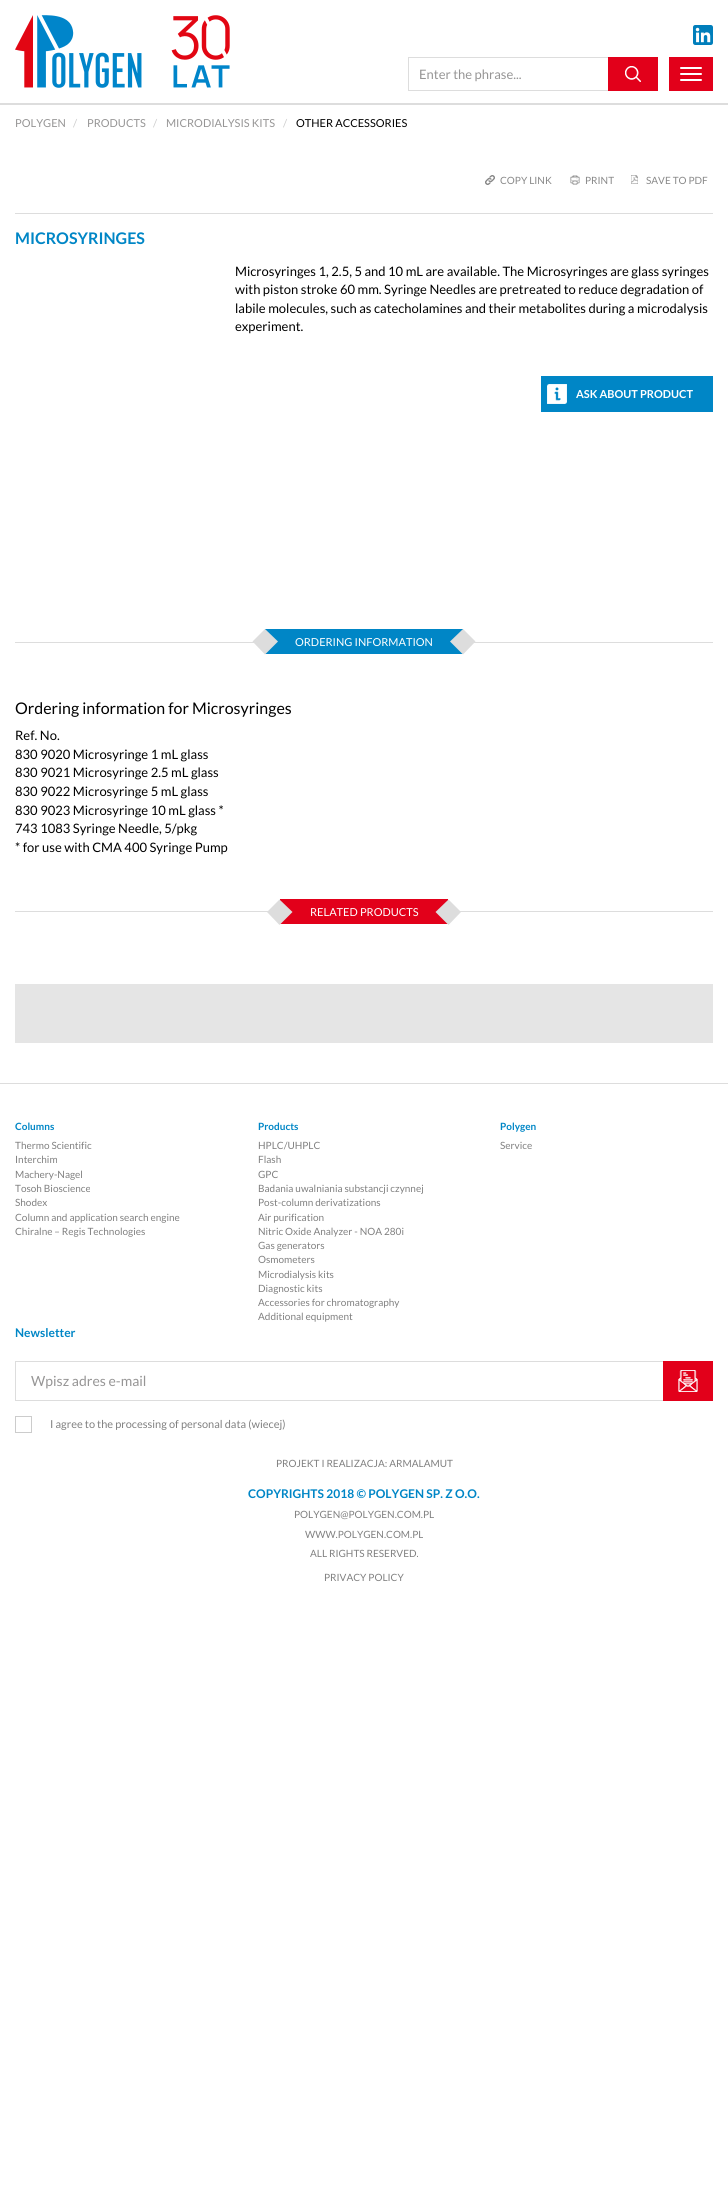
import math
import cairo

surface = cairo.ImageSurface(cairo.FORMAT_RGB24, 728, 2207)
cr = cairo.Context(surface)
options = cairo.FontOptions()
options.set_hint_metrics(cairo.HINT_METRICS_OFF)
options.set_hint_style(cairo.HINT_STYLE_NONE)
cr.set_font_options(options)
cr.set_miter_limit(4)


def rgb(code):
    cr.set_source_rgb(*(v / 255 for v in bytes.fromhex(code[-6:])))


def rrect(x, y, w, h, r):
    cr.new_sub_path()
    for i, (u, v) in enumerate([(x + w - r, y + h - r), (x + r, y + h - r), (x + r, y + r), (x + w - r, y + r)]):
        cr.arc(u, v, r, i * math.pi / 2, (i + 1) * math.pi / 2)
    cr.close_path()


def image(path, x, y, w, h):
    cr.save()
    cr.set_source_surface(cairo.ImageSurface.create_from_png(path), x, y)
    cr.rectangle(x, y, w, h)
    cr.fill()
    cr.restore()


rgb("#ffffff")
cr.paint()
rgb("#dddddd")
cr.rectangle(0, 103, 728, 2)
cr.fill()
rgb("#e2001a")
cr.rectangle(669, 57, 44, 34)
cr.fill()
rgb("#ffffff")
rrect(680, 67, 22, 2, 1)
cr.fill()
rrect(680, 73, 22, 2, 1)
cr.fill()
rrect(680, 79, 22, 2, 1)
cr.fill()
image("img/1.png", 15, 15, 215, 73)
image("img/2.png", 693, 25, 20, 20)
for x, y, w, h, color in [
    (408, 57, 200, 1, "#dddddd"),
    (408, 90, 200, 1, "#dddddd"),
    (408, 57, 1, 34, "#dddddd"),
    (608, 57, 50, 34, "#e2001a"),
]:
    rgb(color)
    cr.rectangle(x, y, w, h)
    cr.fill()
image("img/3.png", 625, 66, 16, 16)
rgb("#dddddd")
cr.rectangle(15, 213, 698, 1)
cr.fill()
image("img/4.png", 485, 175, 10, 10)
image("img/5.png", 570, 175, 10, 10)
image("img/6.png", 631, 175, 7, 9)
rgb("#0086c6")
cr.rectangle(541, 376, 172, 36)
cr.fill()
image("img/7.png", 547, 384, 20, 20)
rgb("#dddddd")
cr.rectangle(15, 642, 698, 1)
cr.fill()
rgb("#0086c6")
cr.rectangle(265, 629, 198, 25)
cr.fill()
rgb("#dddddd")
cr.new_path()
cr.move_to(265, 629)
cr.line_to(278, 641.5)
cr.line_to(265, 654.5)
cr.line_to(252.5, 641.5)
cr.close_path()
cr.fill()
cr.new_path()
cr.move_to(463, 629)
cr.line_to(475.5, 641.5)
cr.line_to(463, 654.5)
cr.line_to(450, 641.5)
cr.close_path()
cr.fill()
cr.rectangle(15, 911, 698, 1)
cr.fill()
rgb("#e2001a")
cr.rectangle(280, 899, 168, 25)
cr.fill()
rgb("#dddddd")
cr.new_path()
cr.move_to(279.5, 899.5)
cr.line_to(292.5, 912)
cr.line_to(279.5, 925)
cr.line_to(267, 912)
cr.close_path()
cr.fill()
cr.new_path()
cr.move_to(448.5, 899.5)
cr.line_to(461, 912)
cr.line_to(448.5, 925)
cr.line_to(435.5, 912)
cr.close_path()
cr.fill()
for x, y, w, h, color in [
    (15, 984, 698, 59, "#e5e5e5"),
    (0, 1083, 728, 1, "#dddddd"),
    (15, 1361, 648, 1, "#dddddd"),
    (15, 1400, 648, 1, "#dddddd"),
    (15, 1361, 1, 40, "#dddddd"),
]:
    rgb(color)
    cr.rectangle(x, y, w, h)
    cr.fill()
cr.rectangle(15.5, 1416.5, 16, 16)
rgb("#cccccc")
cr.set_line_width(1)
cr.stroke()
rgb("#e2001a")
cr.rectangle(663, 1361, 50, 40)
cr.fill()
image("img/8.png", 678, 1370, 20, 22)
cr.select_font_face("Lato")
cr.set_font_size(13)
rgb("#969595")
cr.move_to(419, 79)
cr.show_text("Enter the phrase...")
cr.set_font_size(11)
cr.move_to(15, 127)
cr.show_text("POLYGEN")
rgb("#cccccc")
cr.move_to(73, 127)
cr.show_text("/")
rgb("#969595")
cr.move_to(87, 127)
cr.show_text("PRODUCTS")
rgb("#cccccc")
cr.move_to(153, 127)
cr.show_text("/")
rgb("#969595")
cr.move_to(166, 127)
cr.show_text("MICRODIALYSIS KITS")
rgb("#cccccc")
cr.move_to(283, 127)
cr.show_text("/")
rgb("#000000")
cr.move_to(296, 127)
cr.show_text("OTHER ACCESSORIES")
cr.set_font_size(10)
rgb("#888888")
for x, y, s in [
    (500, 184, "COPY LINK"),
    (585, 184, "PRINT"),
    (646, 184, "SAVE TO PDF"),
]:
    cr.move_to(x, y)
    cr.show_text(s)
cr.select_font_face("Lato", cairo.FONT_SLANT_NORMAL, cairo.FONT_WEIGHT_BOLD)
cr.set_font_size(16)
rgb("#0086c6")
cr.move_to(15, 244)
cr.show_text("MICROSYRINGES")
cr.select_font_face("Lato")
cr.set_font_size(13)
rgb("#000000")
for x, y, s in [
    (235, 276, "Microsyringes 1, 2.5, 5 and 10 mL are available. The Microsyringes are glass syringes"),
    (235, 294, "with piston stroke 60 mm. Syringe Needles are pretreated to reduce degradation of"),
    (235, 313, "labile molecules, such as catecholamines and their metabolites during a microdalysis"),
    (235, 331, "experiment."),
]:
    cr.move_to(x, y)
    cr.show_text(s)
cr.select_font_face("Lato", cairo.FONT_SLANT_NORMAL, cairo.FONT_WEIGHT_BOLD)
cr.set_font_size(11)
rgb("#ffffff")
cr.move_to(576, 398)
cr.show_text("ASK ABOUT PRODUCT")
cr.select_font_face("Lato")
cr.move_to(295, 646)
cr.show_text("ORDERING INFORMATION")
cr.set_font_size(16)
rgb("#000000")
cr.move_to(15, 714)
cr.show_text("Ordering information for Microsyringes")
cr.set_font_size(13)
for x, y, s in [
    (15, 740, "Ref. No."),
    (15, 759, "830 9020 Microsyringe 1 mL glass"),
    (15, 777, "830 9021 Microsyringe 2.5 mL glass"),
    (15, 796, "830 9022 Microsyringe 5 mL glass"),
    (15, 815, "830 9023 Microsyringe 10 mL glass *"),
    (15, 833, "743 1083 Syringe Needle, 5/pkg"),
    (15, 852, "* for use with CMA 400 Syringe Pump"),
]:
    cr.move_to(x, y)
    cr.show_text(s)
cr.set_font_size(11)
rgb("#ffffff")
cr.move_to(310, 916)
cr.show_text("RELATED PRODUCTS")
cr.select_font_face("Lato", cairo.FONT_SLANT_NORMAL, cairo.FONT_WEIGHT_BOLD)
cr.set_font_size(10)
rgb("#0086c6")
cr.move_to(15, 1130)
cr.show_text("Columns")
cr.select_font_face("Lato")
rgb("#808080")
for x, y, s in [
    (15, 1149, "Thermo Scientific"),
    (15, 1163, "Interchim"),
    (15, 1178, "Machery-Nagel"),
    (15, 1192, "Tosoh Bioscience"),
    (15, 1206, "Shodex"),
    (15, 1221, "Column and application search engine"),
    (15, 1235, "Chiralne – Regis Technologies"),
]:
    cr.move_to(x, y)
    cr.show_text(s)
cr.select_font_face("Lato", cairo.FONT_SLANT_NORMAL, cairo.FONT_WEIGHT_BOLD)
rgb("#0086c6")
cr.move_to(258, 1130)
cr.show_text("Products")
cr.select_font_face("Lato")
rgb("#808080")
for x, y, s in [
    (258, 1149, "HPLC/UHPLC"),
    (258, 1163, "Flash"),
    (258, 1178, "GPC"),
    (258, 1192, "Badania uwalniania substancji czynnej"),
    (258, 1206, "Post-column derivatizations"),
    (258, 1221, "Air purification"),
    (258, 1235, "Nitric Oxide Analyzer - NOA 280i"),
    (258, 1249, "Gas generators"),
    (258, 1263, "Osmometers"),
    (258, 1278, "Microdialysis kits"),
    (258, 1292, "Diagnostic kits"),
    (258, 1306, "Accessories for chromatography"),
    (258, 1320, "Additional equipment"),
]:
    cr.move_to(x, y)
    cr.show_text(s)
cr.select_font_face("Lato", cairo.FONT_SLANT_NORMAL, cairo.FONT_WEIGHT_BOLD)
rgb("#0086c6")
cr.move_to(500, 1130)
cr.show_text("Polygen")
cr.select_font_face("Lato")
rgb("#808080")
cr.move_to(500, 1149)
cr.show_text("Service")
cr.select_font_face("Lato", cairo.FONT_SLANT_NORMAL, cairo.FONT_WEIGHT_BOLD)
cr.set_font_size(12)
rgb("#0086c6")
cr.move_to(15, 1337)
cr.show_text("Newsletter")
cr.select_font_face("Lato")
cr.set_font_size(14)
rgb("#969595")
cr.move_to(31, 1386)
cr.show_text("Wpisz adres e-mail")
cr.set_font_size(11)
rgb("#808080")
cr.move_to(50, 1428)
cr.show_text("I agree to the processing of personal data (wiecej)")
cr.set_font_size(10)
cr.move_to(276, 1467)
cr.show_text("PROJEKT I REALIZACJA: ARMALAMUT")
cr.select_font_face("Lato", cairo.FONT_SLANT_NORMAL, cairo.FONT_WEIGHT_BOLD)
cr.set_font_size(12)
rgb("#0086c6")
cr.move_to(248, 1498)
cr.show_text("COPYRIGHTS 2018 © POLYGEN SP. Z O.O.")
cr.select_font_face("Lato")
cr.set_font_size(10)
rgb("#808080")
for x, y, s in [
    (294, 1518, "POLYGEN@POLYGEN.COM.PL"),
    (305, 1538, "WWW.POLYGEN.COM.PL"),
    (310, 1557, "ALL RIGHTS RESERVED."),
    (324, 1581, "PRIVACY POLICY"),
]:
    cr.move_to(x, y)
    cr.show_text(s)
surface.write_to_png("page.png")
